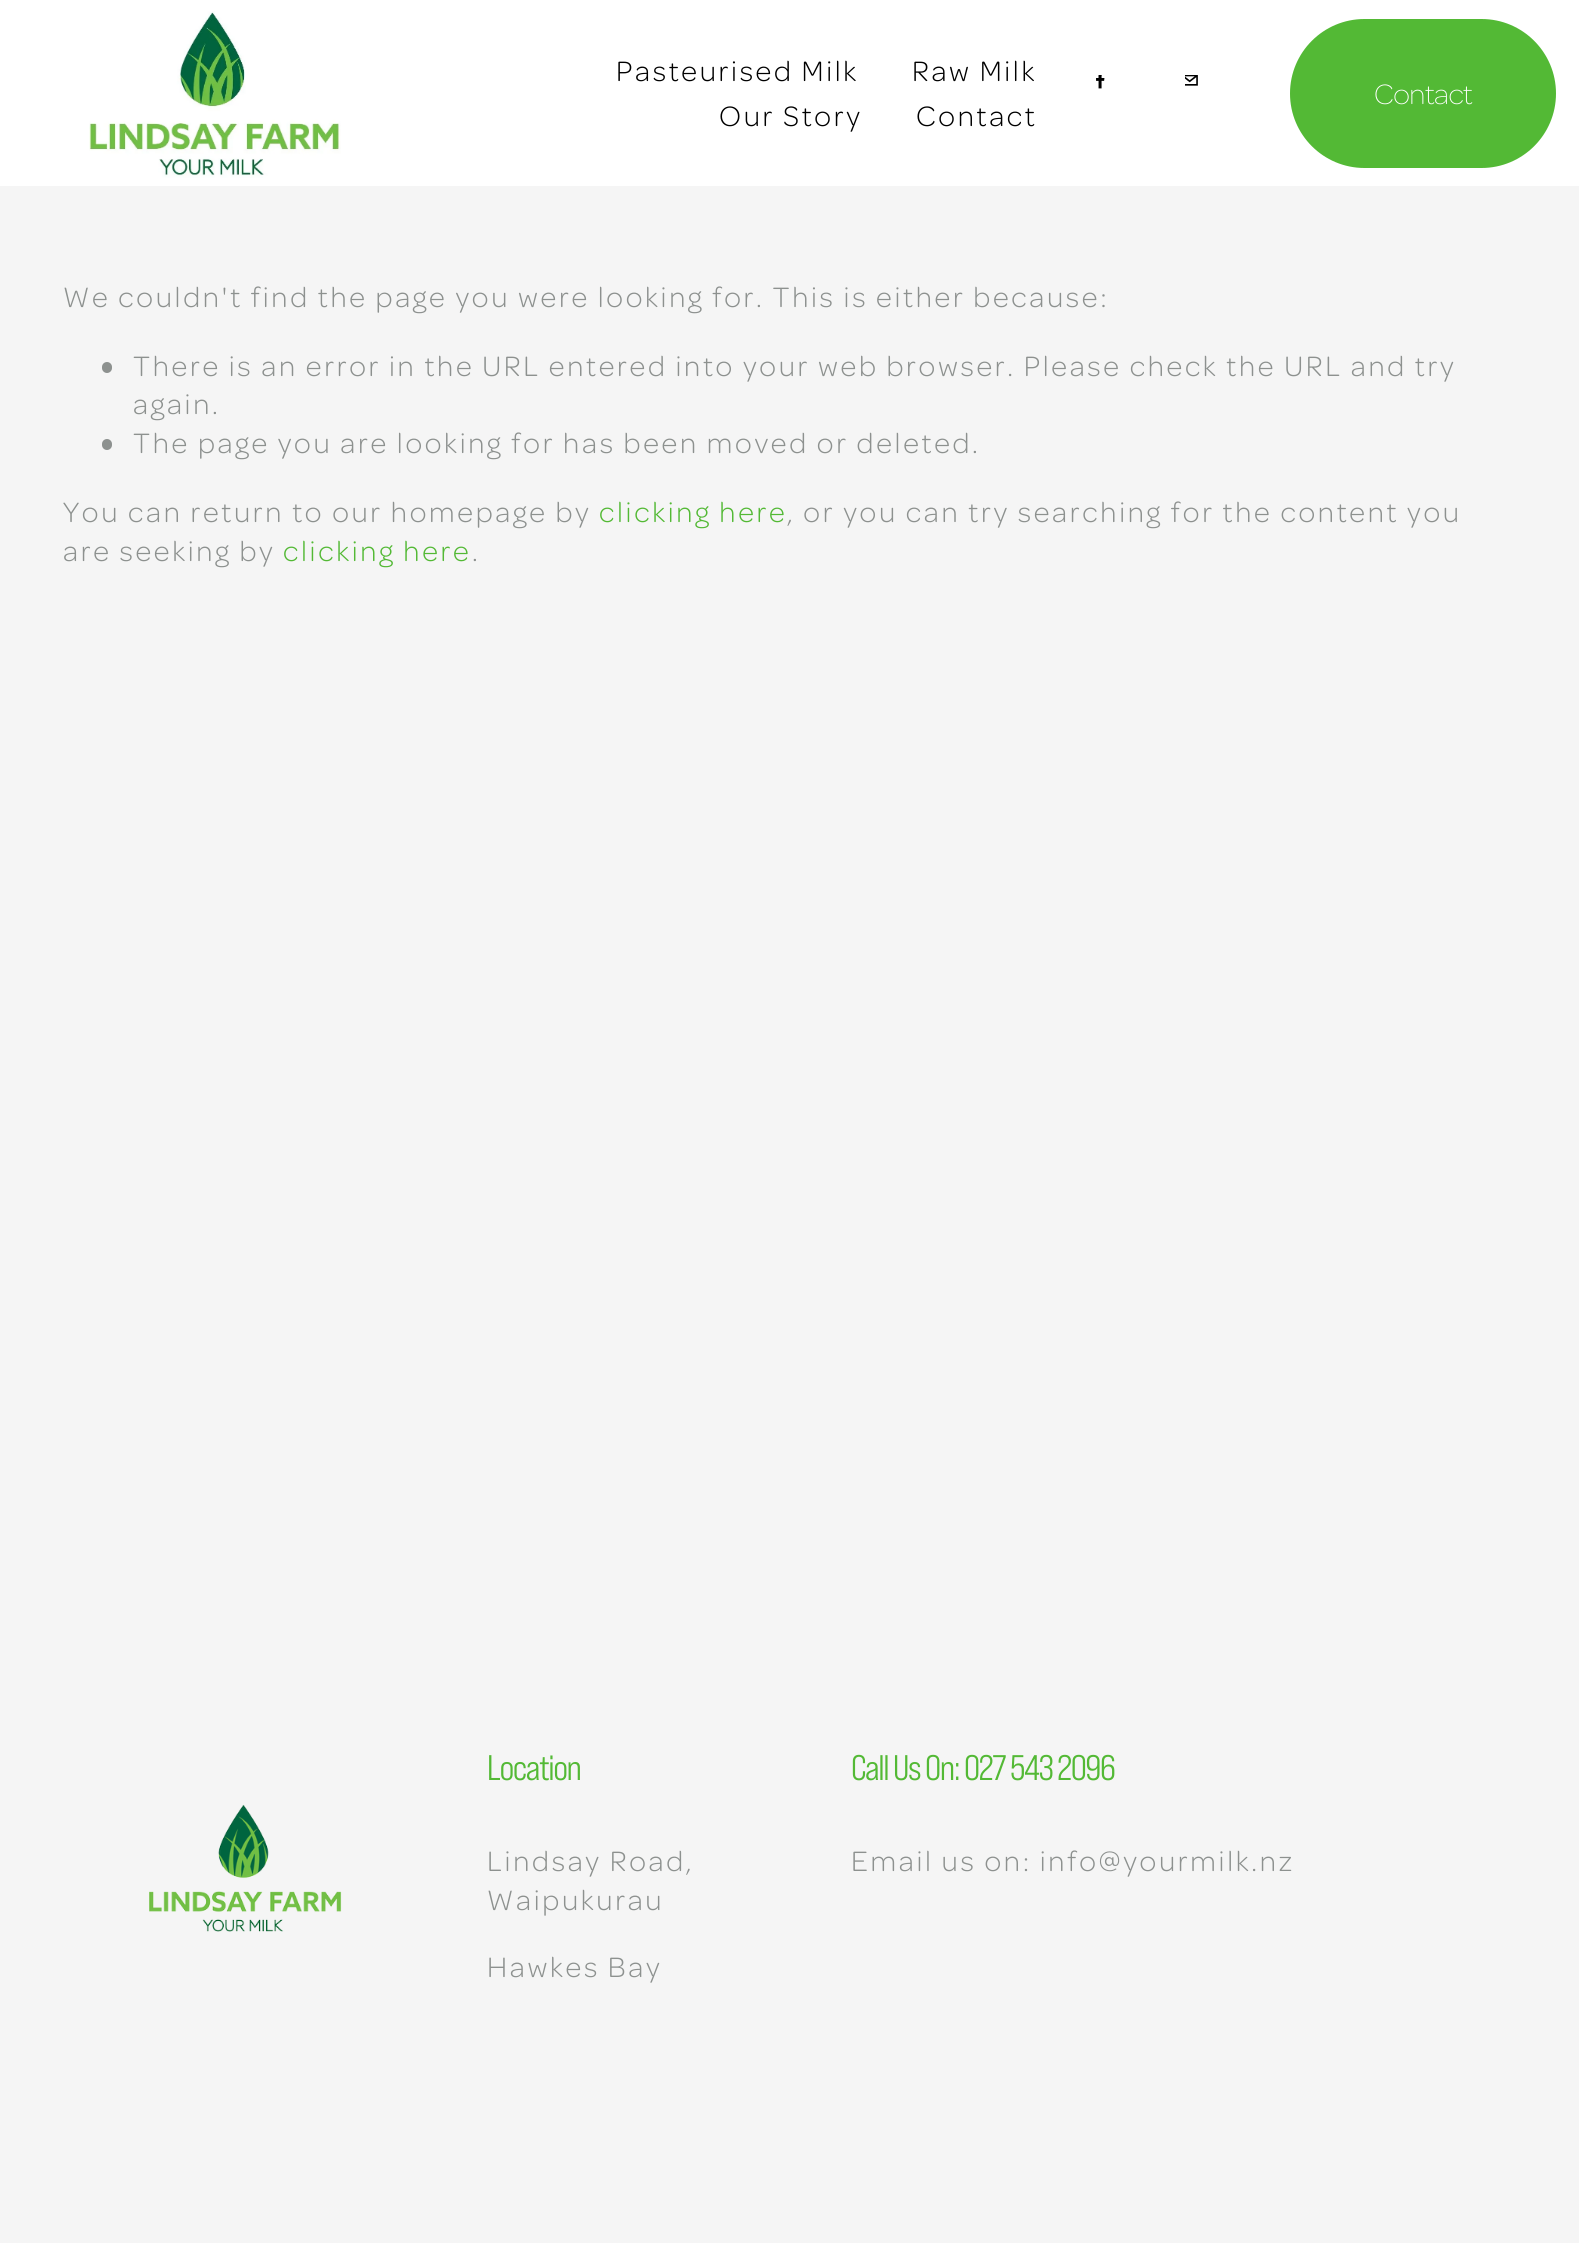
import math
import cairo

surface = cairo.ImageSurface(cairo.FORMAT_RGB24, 1579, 2243)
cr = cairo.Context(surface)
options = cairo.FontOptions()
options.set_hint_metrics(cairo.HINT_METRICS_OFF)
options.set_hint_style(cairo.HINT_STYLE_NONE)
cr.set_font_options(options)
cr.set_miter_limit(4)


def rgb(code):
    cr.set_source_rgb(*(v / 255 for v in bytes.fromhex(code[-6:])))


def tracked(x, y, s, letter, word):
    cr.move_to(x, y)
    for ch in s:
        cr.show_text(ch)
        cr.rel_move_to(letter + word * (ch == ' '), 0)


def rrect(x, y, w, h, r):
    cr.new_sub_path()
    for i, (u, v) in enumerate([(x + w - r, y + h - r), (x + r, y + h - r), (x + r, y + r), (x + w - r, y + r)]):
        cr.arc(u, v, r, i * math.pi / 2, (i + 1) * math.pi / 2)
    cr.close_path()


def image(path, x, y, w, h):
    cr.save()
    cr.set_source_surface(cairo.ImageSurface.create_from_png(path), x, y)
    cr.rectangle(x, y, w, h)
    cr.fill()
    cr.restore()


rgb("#f5f5f5")
cr.paint()
rgb("#ffffff")
cr.rectangle(0, 0, 1579, 186)
cr.fill()
image("img/1.png", 89, 11, 252, 167)
image("img/2.png", 1096, 75, 9, 14)
image("img/3.png", 1185, 75, 13, 11)
rgb("#53b935")
rrect(1284, 13, 278, 161, 80.5)
cr.fill_preserve()
rgb("#ffffff")
cr.set_line_width(12)
cr.stroke()
rgb("#8d918f")
rrect(102, 362, 10, 11, 5)
cr.fill()
rrect(102, 439, 10, 11, 5)
cr.fill()
image("img/4.png", 149, 1804, 193, 128)
cr.select_font_face("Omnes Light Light")
cr.set_font_size(29.9)
rgb("#000000")
for x, y, s in [
    (616, 81, "Pasteurised Milk"),
    (912, 81, "Raw Milk"),
    (719, 126, "Our Story"),
    (916, 126, "Contact"),
]:
    tracked(x, y, s, 2.7, 0)
cr.select_font_face("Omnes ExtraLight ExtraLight")
rgb("#ffffff")
tracked(1374, 104, "Contact", -0.5, 0)
cr.select_font_face("Omnes Light Light")
rgb("#8d918f")
for x, y, s in [
    (63, 307, "We couldn't find the page you were looking for. This is either because:"),
    (133, 376, "There is an error in the URL entered into your web browser. Please check the URL and try"),
    (133, 414, "again."),
    (133, 453, "The page you are looking for has been moved or deleted."),
    (63, 522, "You can return to our homepage by"),
]:
    tracked(x, y, s, 2.7, 0)
rgb("#53b935")
tracked(599, 522, "clicking here", 2.7, 0)
rgb("#8d918f")
tracked(787, 522, ", or you can try searching for the content you", 2.7, 0)
tracked(63, 561, "are seeking by", 2.7, 0)
rgb("#53b935")
tracked(283, 561, "clicking here", 2.7, 0)
rgb("#8d918f")
tracked(472, 561, ".", 2.7, 0)
cr.select_font_face("Bebas Neue")
cr.set_font_size(35.5)
rgb("#53b935")
tracked(487, 1780, "Location", -1.4, 0)
cr.select_font_face("Omnes Light Light")
cr.set_font_size(29.9)
rgb("#8d918f")
for x, y, s in [
    (487, 1871, "Lindsay Road,"),
    (487, 1910, "Waipukurau"),
    (487, 1977, "Hawkes Bay"),
]:
    tracked(x, y, s, 2.7, 0)
cr.select_font_face("Bebas Neue")
cr.set_font_size(35.5)
rgb("#53b935")
tracked(851, 1780, "Call Us On: 027 543 2096", -1.4, 0)
cr.select_font_face("Omnes Light Light")
cr.set_font_size(29.9)
rgb("#8d918f")
tracked(851, 1871, "Email us on: info@yourmilk.nz", 2.7, 0)
surface.write_to_png("page.png")
